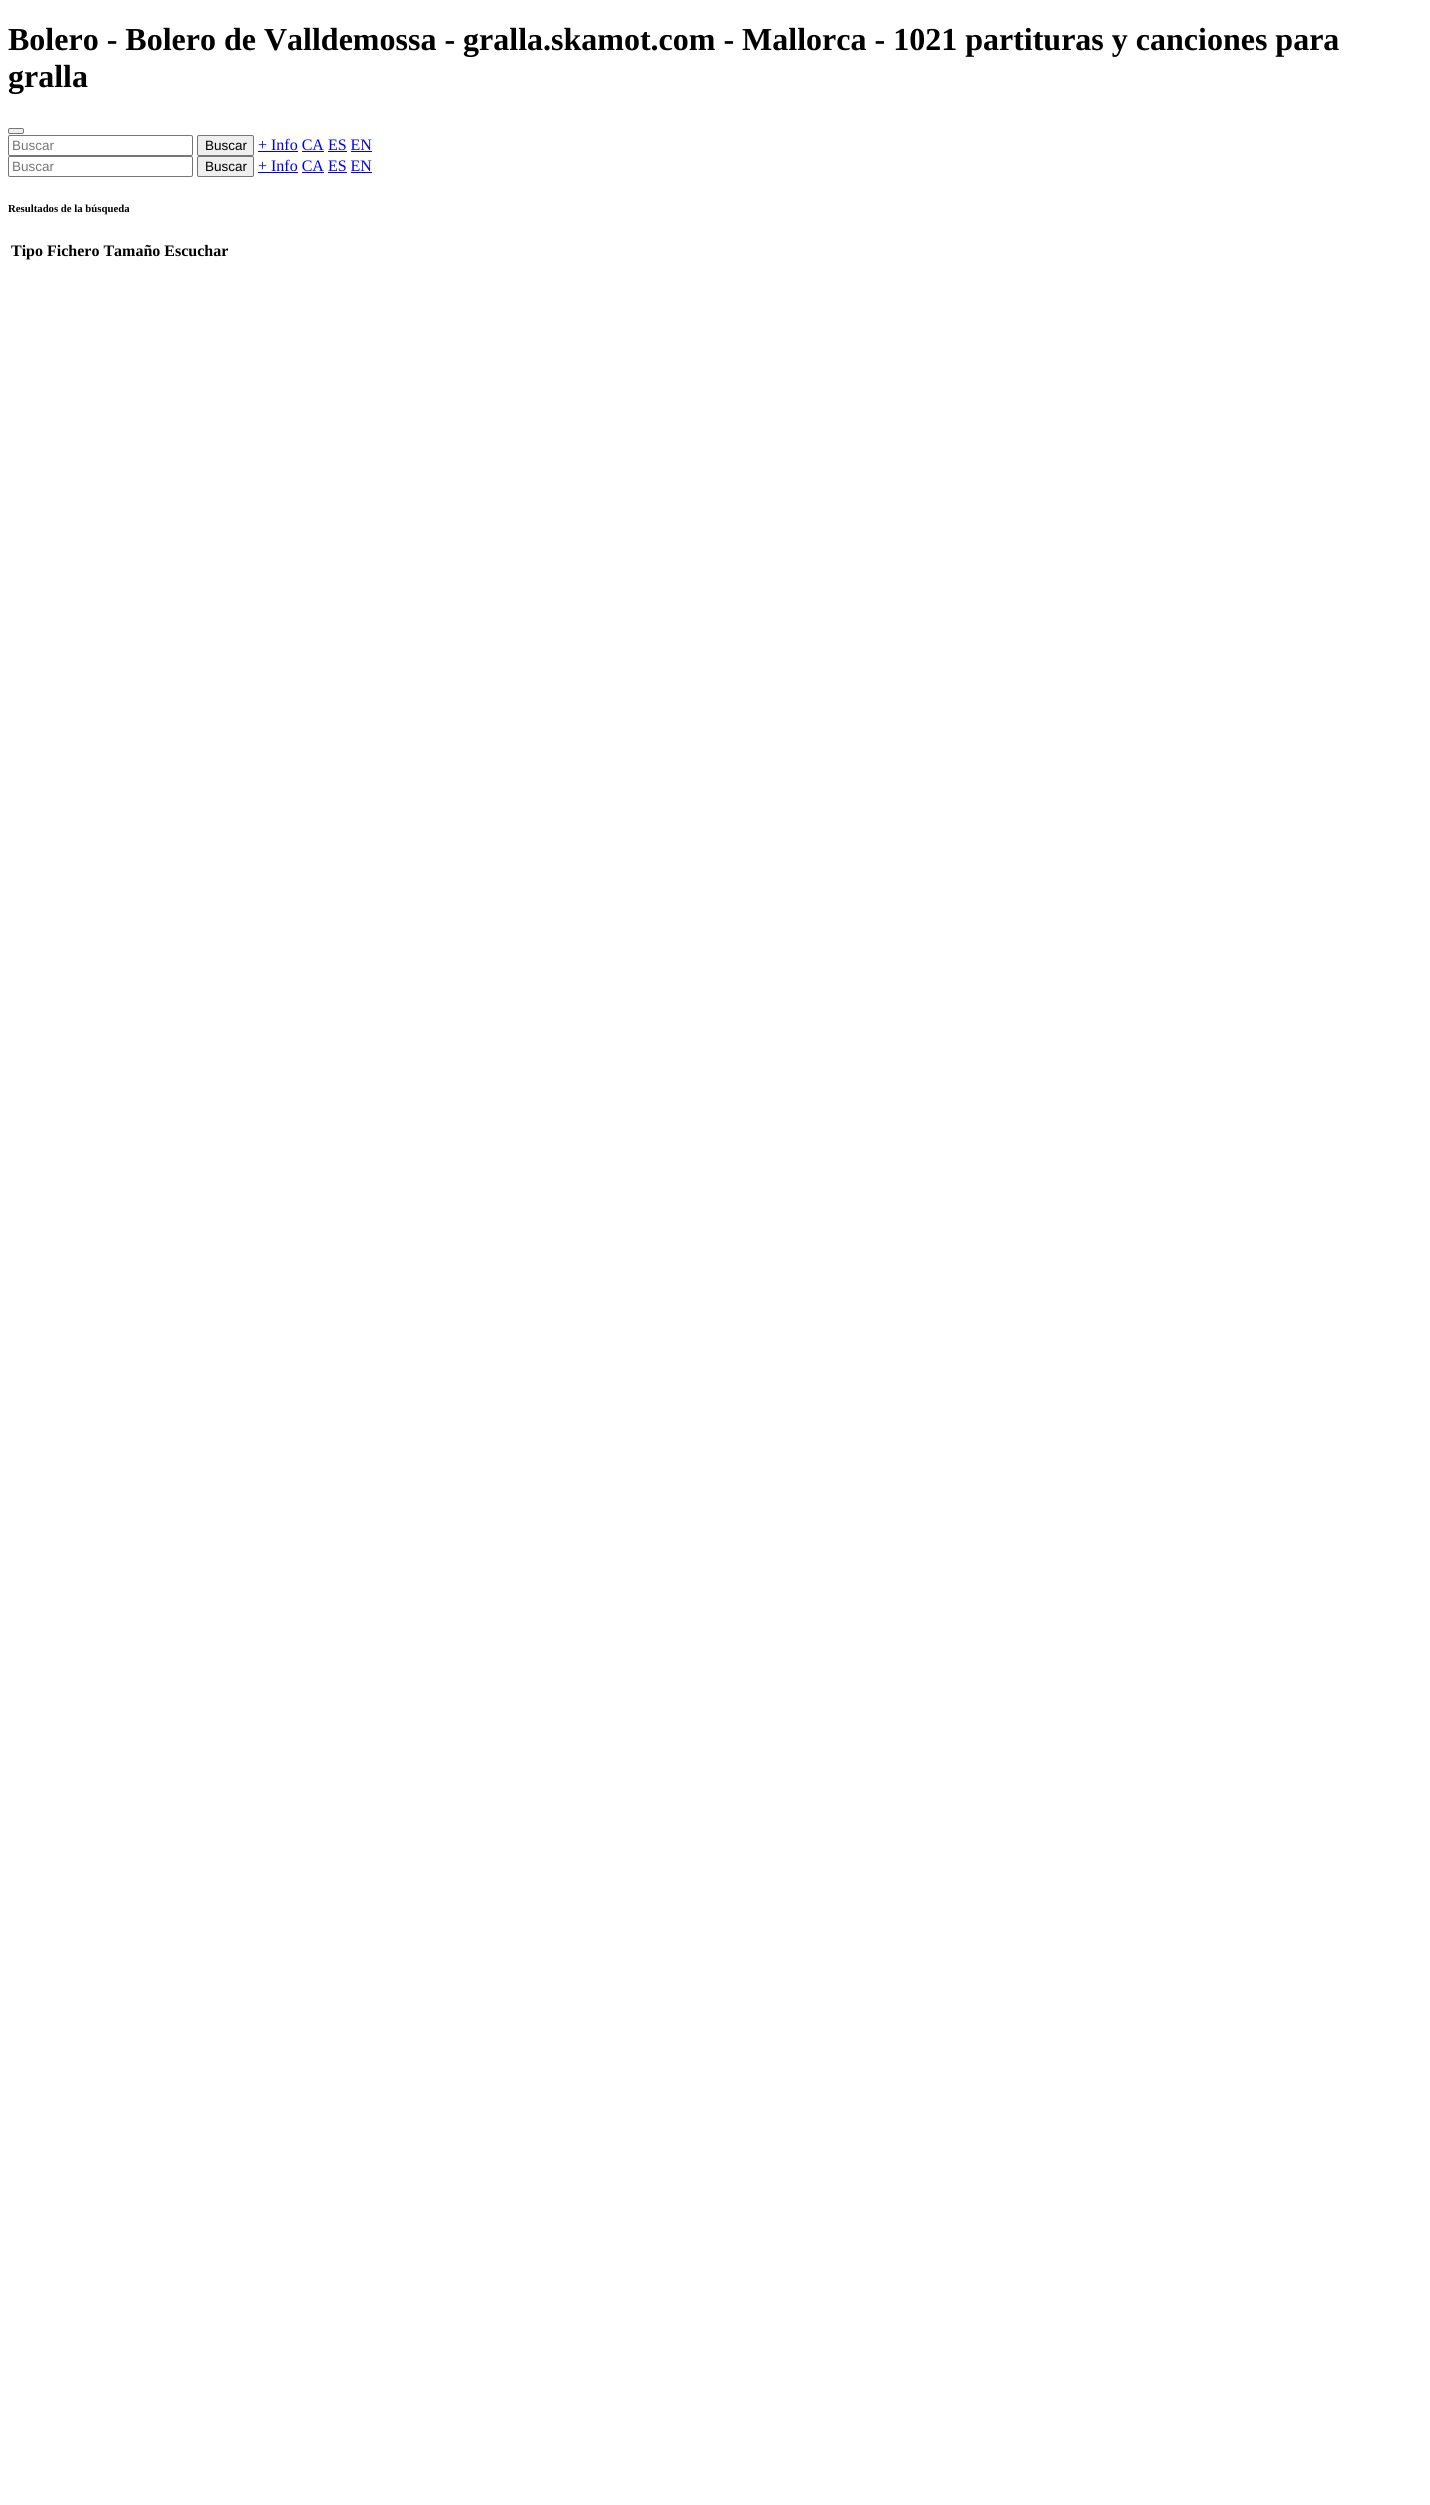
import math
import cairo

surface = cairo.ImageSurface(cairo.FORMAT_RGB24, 1430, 2505)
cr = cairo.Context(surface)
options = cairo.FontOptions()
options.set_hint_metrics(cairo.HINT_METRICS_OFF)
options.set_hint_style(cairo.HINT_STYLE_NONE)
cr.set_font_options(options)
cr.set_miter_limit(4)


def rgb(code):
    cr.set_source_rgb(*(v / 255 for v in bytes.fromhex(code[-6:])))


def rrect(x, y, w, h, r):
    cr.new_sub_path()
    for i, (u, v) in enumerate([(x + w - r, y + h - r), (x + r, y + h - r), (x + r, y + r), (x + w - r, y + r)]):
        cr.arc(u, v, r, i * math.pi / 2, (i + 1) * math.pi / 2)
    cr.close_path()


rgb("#ffffff")
cr.paint()
rgb("#efefef")
rrect(8.5, 128.5, 15, 5, 1.5)
cr.fill_preserve()
rgb("#767676")
cr.set_line_width(1)
cr.stroke()
rrect(8.5, 135.5, 184, 20, 1.5)
cr.stroke()
rgb("#efefef")
rrect(197.5, 135.5, 56, 20, 1.5)
cr.fill_preserve()
rgb("#767676")
cr.stroke()
for x, y, w, h, color in [
    (258, 151, 40, 1, "#0000ee"),
    (302, 151, 22, 1, "#0000ee"),
    (328, 151, 19, 1, "#0000ee"),
    (351, 151, 21, 1, "#0000ee"),
]:
    rgb(color)
    cr.rectangle(x, y, w, h)
    cr.fill()
rrect(8.5, 156.5, 184, 20, 1.5)
rgb("#767676")
cr.stroke()
rgb("#efefef")
rrect(197.5, 156.5, 56, 20, 1.5)
cr.fill_preserve()
rgb("#767676")
cr.stroke()
for x, y, w, h, color in [
    (258, 172, 40, 1, "#0000ee"),
    (302, 172, 22, 1, "#0000ee"),
    (328, 172, 19, 1, "#0000ee"),
    (351, 172, 21, 1, "#0000ee"),
]:
    rgb(color)
    cr.rectangle(x, y, w, h)
    cr.fill()
cr.select_font_face("Liberation Serif", cairo.FONT_SLANT_NORMAL, cairo.FONT_WEIGHT_BOLD)
cr.set_font_size(32)
rgb("#000000")
cr.move_to(8, 50)
cr.show_text("Bolero - Bolero de Valldemossa - gralla.skamot.com - Mallorca - 1021 partituras y canciones para")
cr.move_to(8, 87)
cr.show_text("gralla")
cr.select_font_face("Liberation Sans")
cr.set_font_size(13.5)
rgb("#757575")
cr.move_to(12, 150)
cr.show_text("Buscar")
rgb("#000000")
cr.move_to(205, 150)
cr.show_text("Buscar")
cr.select_font_face("Liberation Serif")
cr.set_font_size(16)
rgb("#0000ee")
cr.move_to(258, 150)
cr.show_text("+ Info CA ES EN")
cr.select_font_face("Liberation Sans")
cr.set_font_size(13.5)
rgb("#757575")
cr.move_to(12, 171)
cr.show_text("Buscar")
rgb("#000000")
cr.move_to(205, 171)
cr.show_text("Buscar")
cr.select_font_face("Liberation Serif")
cr.set_font_size(16)
rgb("#0000ee")
cr.move_to(258, 171)
cr.show_text("+ Info CA ES EN")
cr.select_font_face("Liberation Serif", cairo.FONT_SLANT_NORMAL, cairo.FONT_WEIGHT_BOLD)
cr.set_font_size(10.75)
rgb("#000000")
cr.move_to(8, 212)
cr.show_text("Resultados de la búsqueda")
cr.set_font_size(16)
cr.move_to(11, 256)
cr.show_text("Tipo Fichero Tamaño Escuchar")
surface.write_to_png("page.png")
